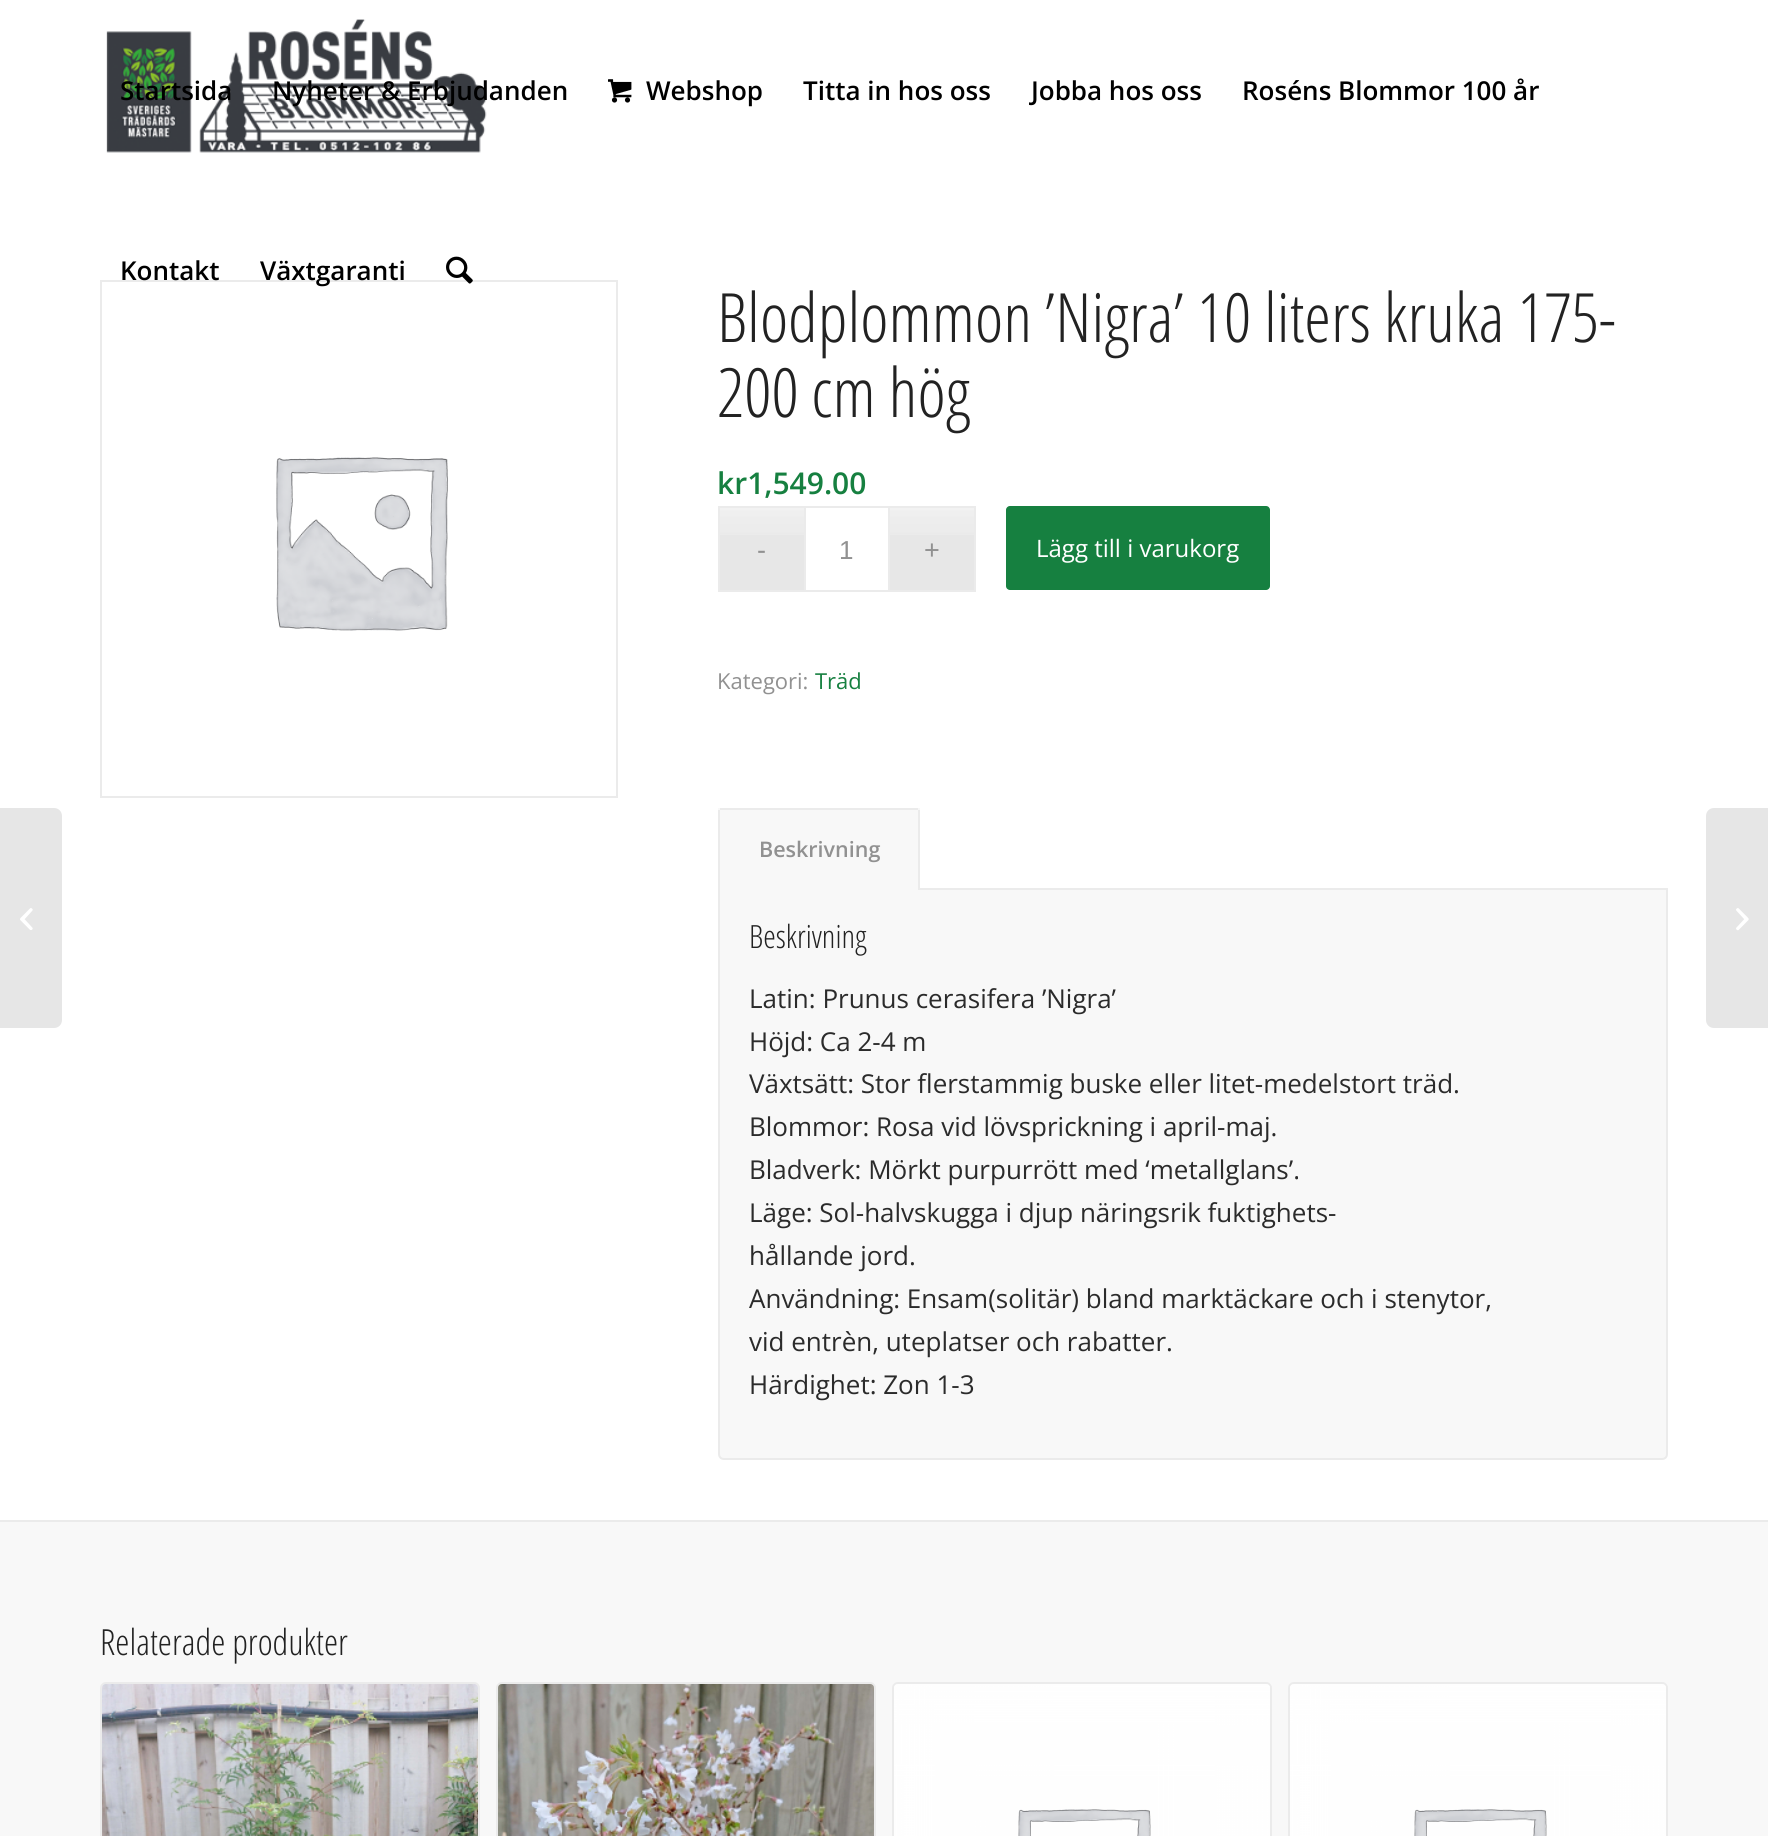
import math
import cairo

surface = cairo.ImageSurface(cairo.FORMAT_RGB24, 1768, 1836)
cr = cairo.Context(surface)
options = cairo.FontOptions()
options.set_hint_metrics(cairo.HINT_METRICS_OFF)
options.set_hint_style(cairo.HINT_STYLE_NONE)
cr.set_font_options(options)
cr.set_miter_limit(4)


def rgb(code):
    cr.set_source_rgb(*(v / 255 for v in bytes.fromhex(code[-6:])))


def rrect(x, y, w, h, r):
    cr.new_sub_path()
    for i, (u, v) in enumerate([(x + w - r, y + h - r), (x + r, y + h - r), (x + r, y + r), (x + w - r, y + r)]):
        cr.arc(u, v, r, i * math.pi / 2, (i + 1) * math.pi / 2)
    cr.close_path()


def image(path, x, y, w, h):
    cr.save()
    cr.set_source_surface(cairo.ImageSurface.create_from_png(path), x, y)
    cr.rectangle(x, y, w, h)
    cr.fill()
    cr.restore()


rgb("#ffffff")
cr.paint()
image("img/1.png", 106, 19, 381, 134)
image("img/2.png", 608, 79, 24, 24)
cr.rectangle(101, 281, 516, 516)
rgb("#ebebeb")
cr.stroke()
image("img/3.png", 446, 256, 27, 28)
rgb("#e6e6e6")
cr.new_path()
cr.move_to(0, 808)
cr.line_to(54, 808)
cr.curve_to(58.5, 808, 62, 811.5, 62, 816)
cr.line_to(62, 1020)
cr.curve_to(62, 1024.5, 58.5, 1028, 54, 1028)
cr.line_to(0, 1028)
cr.close_path()
cr.fill()
image("img/4.png", 20, 908, 13, 22)
image("img/5.png", 276, 457, 172, 174)
rgb("#e7e7e7")
cr.rectangle(720, 508, 84, 82)
cr.fill()
image("img/6.png", 720, 508, 84, 27)
cr.rectangle(890, 508, 84, 82)
cr.fill()
image("img/6.png", 890, 508, 84, 27)
for x, y, w, h, color in [
    (718, 506, 86, 2, "#ebebeb"),
    (718, 590, 86, 2, "#ebebeb"),
    (718, 506, 2, 86, "#ebebeb"),
]:
    rgb(color)
    cr.rectangle(x, y, w, h)
    cr.fill()
cr.rectangle(805, 507, 84, 84)
cr.stroke()
for x, y, w, h, color in [
    (890, 506, 86, 2, "#ebebeb"),
    (974, 506, 2, 86, "#ebebeb"),
    (890, 590, 86, 2, "#ebebeb"),
]:
    rgb(color)
    cr.rectangle(x, y, w, h)
    cr.fill()
rgb("#168040")
rrect(1006, 506, 264, 84, 4)
cr.fill()
rgb("#f8f8f8")
cr.new_path()
cr.move_to(719, 889)
cr.line_to(1667, 889)
cr.line_to(1667, 1454)
cr.curve_to(1667, 1457, 1665, 1459, 1662, 1459)
cr.line_to(724, 1459)
cr.curve_to(721, 1459, 719, 1457, 719, 1454)
cr.close_path()
cr.fill_preserve()
rgb("#ebebeb")
cr.stroke()
for x, y, w, h, color in [
    (718, 808, 202, 82, "#f8f8f8"),
    (720, 808, 198, 2, "#ebebeb"),
    (918, 810, 2, 80, "#ebebeb"),
    (718, 810, 2, 80, "#ebebeb"),
    (0, 1522, 1768, 314, "#f8f8f8"),
    (0, 1520, 1768, 2, "#ebebeb"),
]:
    rgb(color)
    cr.rectangle(x, y, w, h)
    cr.fill()
rrect(101, 1683, 378, 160, 5)
cr.stroke()
image("img/7.png", 102, 1684, 376, 152)
rrect(497, 1683, 378, 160, 5)
cr.stroke()
image("img/8.png", 498, 1684, 376, 152)
rrect(893, 1683, 378, 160, 5)
cr.stroke()
image("img/9.png", 894, 1684, 376, 152)
rrect(1289, 1683, 378, 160, 5)
cr.stroke()
image("img/9.png", 1290, 1684, 376, 152)
rgb("#e6e6e6")
cr.new_path()
cr.move_to(1714, 808)
cr.line_to(1768, 808)
cr.line_to(1768, 1028)
cr.line_to(1714, 1028)
cr.curve_to(1709.5, 1028, 1706, 1024.5, 1706, 1020)
cr.line_to(1706, 816)
cr.curve_to(1706, 811.5, 1709.5, 808, 1714, 808)
cr.close_path()
cr.fill()
image("img/10.png", 1736, 908, 13, 23)
cr.select_font_face("Open Sans SemiBold")
cr.set_font_size(26)
rgb("#000000")
for x, y, s in [
    (120, 100, "Startsida"),
    (272, 100, "Nyheter & Erbjudanden"),
    (646, 100, "Webshop"),
    (803, 100, "Titta in hos oss"),
    (1031, 100, "Jobba hos oss"),
    (1242, 100, "Roséns Blommor 100 år"),
    (120, 280, "Kontakt"),
    (260, 280, "Växtgaranti"),
]:
    cr.move_to(x, y)
    cr.show_text(s)
cr.select_font_face("Open Sans Condensed Light")
cr.set_font_size(68)
rgb("#222222")
cr.move_to(717, 342)
cr.show_text("Blodplommon ’Nigra’ 10 liters kruka 175-")
cr.move_to(717, 417)
cr.show_text("200 cm hög")
cr.select_font_face("Open Sans SemiBold")
cr.set_font_size(30)
rgb("#168040")
cr.move_to(717, 494)
cr.show_text("kr1,549.00")
cr.select_font_face("Liberation Sans")
cr.set_font_size(27)
rgb("#919191")
cr.move_to(757, 559)
cr.show_text("-")
cr.set_font_size(26)
cr.move_to(839, 559)
cr.show_text("1")
cr.set_font_size(27)
cr.move_to(924, 559)
cr.show_text("+")
cr.select_font_face("Open Sans")
cr.set_font_size(24)
rgb("#ffffff")
cr.move_to(1036, 557)
cr.show_text("Lägg till i varukorg")
cr.set_font_size(22)
rgb("#919191")
cr.move_to(717, 689)
cr.show_text("Kategori:")
rgb("#168040")
cr.move_to(815, 689)
cr.show_text("Träd")
cr.select_font_face("Open Sans SemiBold")
cr.set_font_size(21.5)
rgb("#919191")
cr.move_to(759, 857)
cr.show_text("Beskrivning")
cr.select_font_face("Open Sans Condensed Light")
cr.set_font_size(32)
rgb("#222222")
cr.move_to(749, 948)
cr.show_text("Beskrivning")
cr.select_font_face("Open Sans")
cr.set_font_size(26)
rgb("#2b2b2b")
for x, y, s in [
    (749, 1008, "Latin: Prunus cerasifera ’Nigra’"),
    (749, 1051, "Höjd: Ca 2-4 m"),
    (749, 1093, "Växtsätt: Stor flerstammig buske eller litet-medelstort träd."),
    (749, 1136, "Blommor: Rosa vid lövsprickning i april-maj."),
    (749, 1179, "Bladverk: Mörkt purpurrött med ‘metallglans’."),
    (749, 1222, "Läge: Sol-halvskugga i djup näringsrik fuktighets-"),
    (749, 1265, "hållande jord."),
    (749, 1308, "Användning: Ensam(solitär) bland marktäckare och i stenytor,"),
    (749, 1351, "vid entrèn, uteplatser och rabatter."),
    (749, 1394, "Härdighet: Zon 1-3"),
]:
    cr.move_to(x, y)
    cr.show_text(s)
cr.select_font_face("Open Sans Condensed Light")
cr.set_font_size(36)
rgb("#222222")
cr.move_to(100, 1655)
cr.show_text("Relaterade produkter")
surface.write_to_png("page.png")
